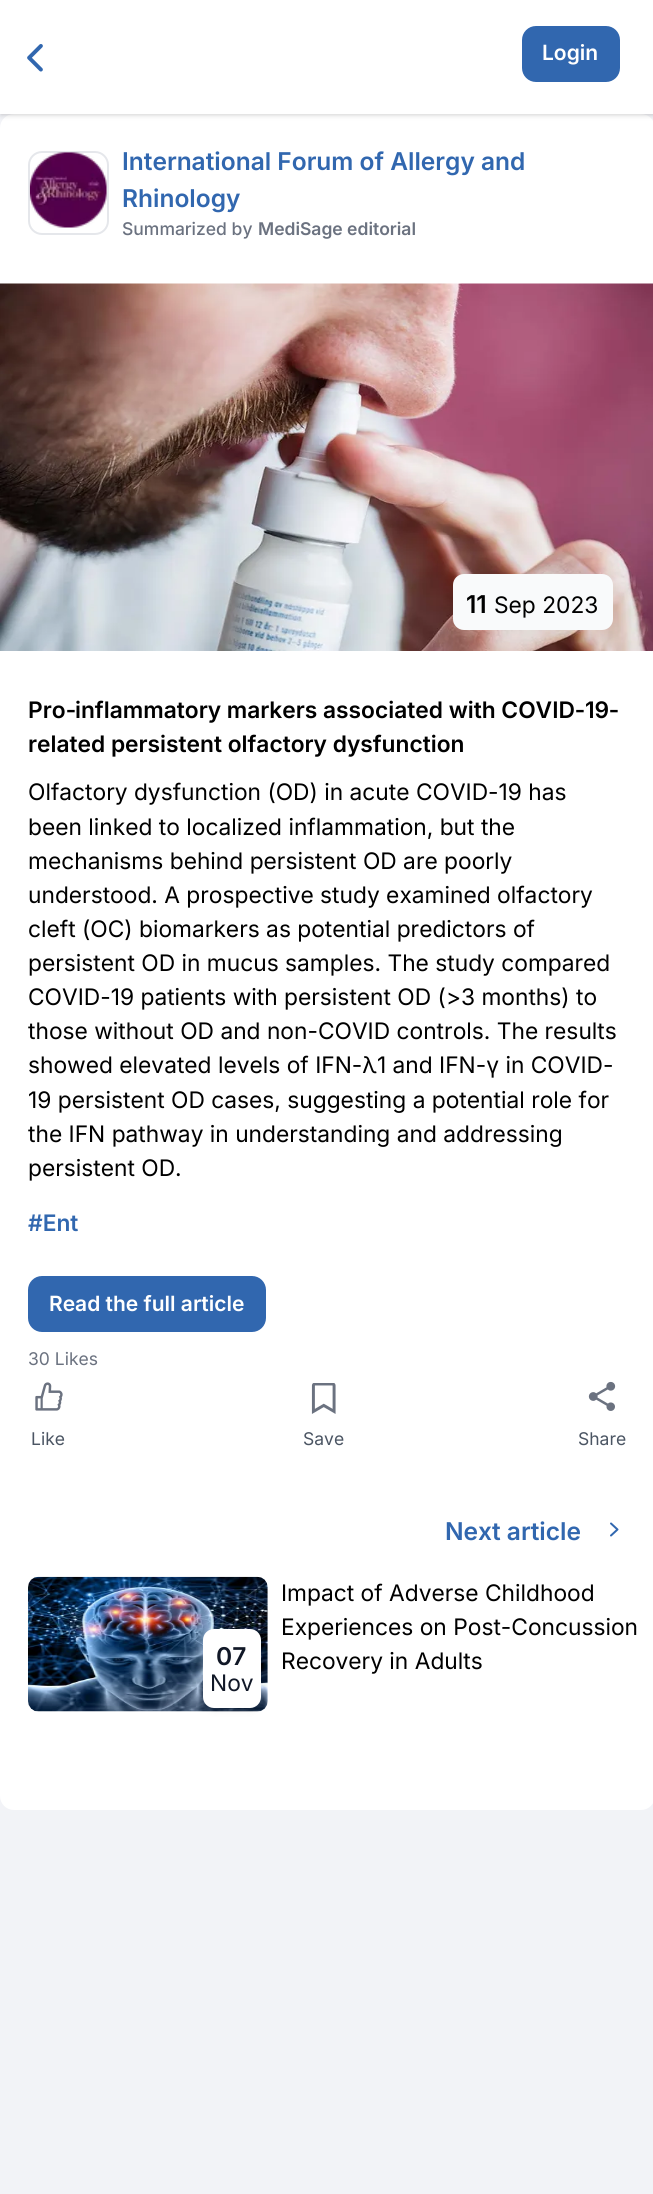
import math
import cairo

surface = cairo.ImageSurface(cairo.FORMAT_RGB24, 653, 2194)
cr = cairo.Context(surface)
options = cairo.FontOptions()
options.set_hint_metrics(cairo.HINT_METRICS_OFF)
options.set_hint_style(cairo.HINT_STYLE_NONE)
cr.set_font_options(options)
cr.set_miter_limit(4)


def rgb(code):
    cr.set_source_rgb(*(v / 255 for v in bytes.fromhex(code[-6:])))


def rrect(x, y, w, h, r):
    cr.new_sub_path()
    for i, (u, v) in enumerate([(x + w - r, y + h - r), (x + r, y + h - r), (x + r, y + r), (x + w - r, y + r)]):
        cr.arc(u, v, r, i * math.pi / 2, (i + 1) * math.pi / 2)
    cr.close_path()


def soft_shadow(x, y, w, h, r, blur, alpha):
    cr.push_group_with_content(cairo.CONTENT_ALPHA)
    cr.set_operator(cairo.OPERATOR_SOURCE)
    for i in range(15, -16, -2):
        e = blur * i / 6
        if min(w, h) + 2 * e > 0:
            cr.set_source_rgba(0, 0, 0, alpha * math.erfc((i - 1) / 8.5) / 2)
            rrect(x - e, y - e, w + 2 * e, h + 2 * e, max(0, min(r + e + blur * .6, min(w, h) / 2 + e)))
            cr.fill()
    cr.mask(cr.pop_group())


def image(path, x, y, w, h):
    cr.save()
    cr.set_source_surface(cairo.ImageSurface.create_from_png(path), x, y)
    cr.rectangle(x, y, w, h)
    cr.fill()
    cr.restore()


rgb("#f2f3f7")
cr.paint()
rgb("#ffffff")
rrect(0, 114, 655, 1696, 14)
cr.fill()
rgb("#000000")
soft_shadow(2, 4, 651, 110, 0, 2, 0.1)
soft_shadow(0, 2, 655, 114, 0, 2.5, 0.1)
rgb("#ffffff")
cr.rectangle(0, 0, 653, 114)
cr.fill()
image("img/1.png", 27, 44, 16, 28)
rgb("#3167af")
rrect(522, 26, 98, 56, 14)
cr.fill()
rrect(29, 152, 79, 82, 13)
rgb("#e5e7eb")
cr.stroke()
image("img/2.png", 29, 152, 78, 76)
image("img/3.png", 0, 283, 653, 368)
rgb("#f9fafb")
rrect(453, 574, 160, 56, 11)
cr.fill()
rgb("#3167af")
rrect(28, 1276, 238, 56, 14)
cr.fill()
image("img/4.png", 35, 1382, 28, 29)
image("img/5.png", 311, 1383, 25, 31)
image("img/6.png", 588, 1381, 28, 30)
cr.new_path()
cr.move_to(611, 1535.5)
cr.line_to(617.5, 1529.5)
cr.line_to(611, 1523.5)
cr.set_line_cap(cairo.LINE_CAP_ROUND)
cr.set_line_join(cairo.LINE_JOIN_ROUND)
cr.stroke()
image("img/7.png", 28, 1576, 240, 136)
rgb("#000000")
soft_shadow(210, 1643, 44, 65, 4, 5, 0.1)
cr.save()
rrect(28, 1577, 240, 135, 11)
cr.clip()
soft_shadow(208, 1652, 48, 68, 5, 13, 0.1)
cr.restore()
rgb("#ffffff")
rrect(203, 1629, 58, 79, 11)
cr.fill()
cr.select_font_face("Inter SemiBold")
cr.set_font_size(21)
cr.move_to(542, 60)
cr.show_text("Login")
cr.set_font_size(24.5)
rgb("#3167af")
cr.move_to(122, 170)
cr.show_text("International Forum of Allergy and")
cr.move_to(122, 207)
cr.show_text("Rhinology")
cr.select_font_face("Inter Medium")
cr.set_font_size(17.5)
rgb("#6b7280")
cr.move_to(122, 235)
cr.show_text("Summarized by")
cr.select_font_face("Inter SemiBold")
cr.move_to(258, 235)
cr.show_text("MediSage editorial")
cr.set_font_size(24.5)
rgb("#000000")
cr.move_to(466, 613)
cr.show_text("11")
cr.select_font_face("Inter")
cr.set_font_size(22.75)
cr.move_to(494, 613)
cr.show_text("Sep 2023")
cr.select_font_face("Inter SemiBold")
cr.move_to(28, 718)
cr.show_text("Pro")
cr.select_font_face("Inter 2 SemiBold")
cr.move_to(66, 718)
cr.show_text("‐")
cr.select_font_face("Inter SemiBold")
cr.move_to(75, 718)
cr.show_text("inflammatory markers associated with COVID")
cr.select_font_face("Inter 2 SemiBold")
cr.move_to(575, 718)
cr.show_text("‐")
cr.select_font_face("Inter SemiBold")
cr.move_to(585, 718)
cr.show_text("19")
cr.select_font_face("Inter 2 SemiBold")
cr.move_to(609, 718)
cr.show_text("‐")
cr.select_font_face("Inter SemiBold")
cr.move_to(28, 752)
cr.show_text("related persistent olfactory dysfunction")
cr.select_font_face("Inter")
for x, y, s in [
    (28, 800, "Olfactory dysfunction (OD) in acute COVID-19 has"),
    (28, 835, "been linked to localized inflammation, but the"),
    (28, 869, "mechanisms behind persistent OD are poorly"),
    (28, 903, "understood. A prospective study examined olfactory"),
    (28, 937, "cleft (OC) biomarkers as potential predictors of"),
    (28, 971, "persistent OD in mucus samples. The study compared"),
    (28, 1005, "COVID-19 patients with persistent OD (>3 months) to"),
    (28, 1039, "those without OD and non-COVID controls. The results"),
    (28, 1073, "showed elevated levels of IFN-λ1 and IFN-γ in COVID-"),
    (28, 1108, "19 persistent OD cases, suggesting a potential role for"),
    (28, 1142, "the IFN pathway in understanding and addressing"),
    (28, 1176, "persistent OD."),
]:
    cr.move_to(x, y)
    cr.show_text(s)
cr.select_font_face("Inter SemiBold")
rgb("#3167af")
cr.move_to(28, 1231)
cr.show_text("#Ent")
cr.set_font_size(21)
rgb("#ffffff")
cr.move_to(49, 1311)
cr.show_text("Read the full article")
cr.select_font_face("Inter")
cr.set_font_size(17.5)
rgb("#6b7280")
cr.move_to(28, 1365)
cr.show_text("30 Likes")
rgb("#4b5563")
for x, y, s in [
    (31, 1445, "Like"),
    (303, 1445, "Save"),
    (578, 1445, "Share"),
]:
    cr.move_to(x, y)
    cr.show_text(s)
cr.select_font_face("Inter SemiBold")
cr.set_font_size(24.5)
rgb("#3167af")
cr.move_to(445, 1540)
cr.show_text("Next article")
rgb("#111827")
cr.move_to(216, 1665)
cr.show_text("07")
cr.select_font_face("Inter")
cr.set_font_size(22.75)
cr.move_to(210, 1691)
cr.show_text("Nov")
rgb("#000000")
for x, y, s in [
    (281, 1601, "Impact of Adverse Childhood"),
    (281, 1635, "Experiences on Post-Concussion"),
    (281, 1669, "Recovery in Adults"),
]:
    cr.move_to(x, y)
    cr.show_text(s)
surface.write_to_png("page.png")
